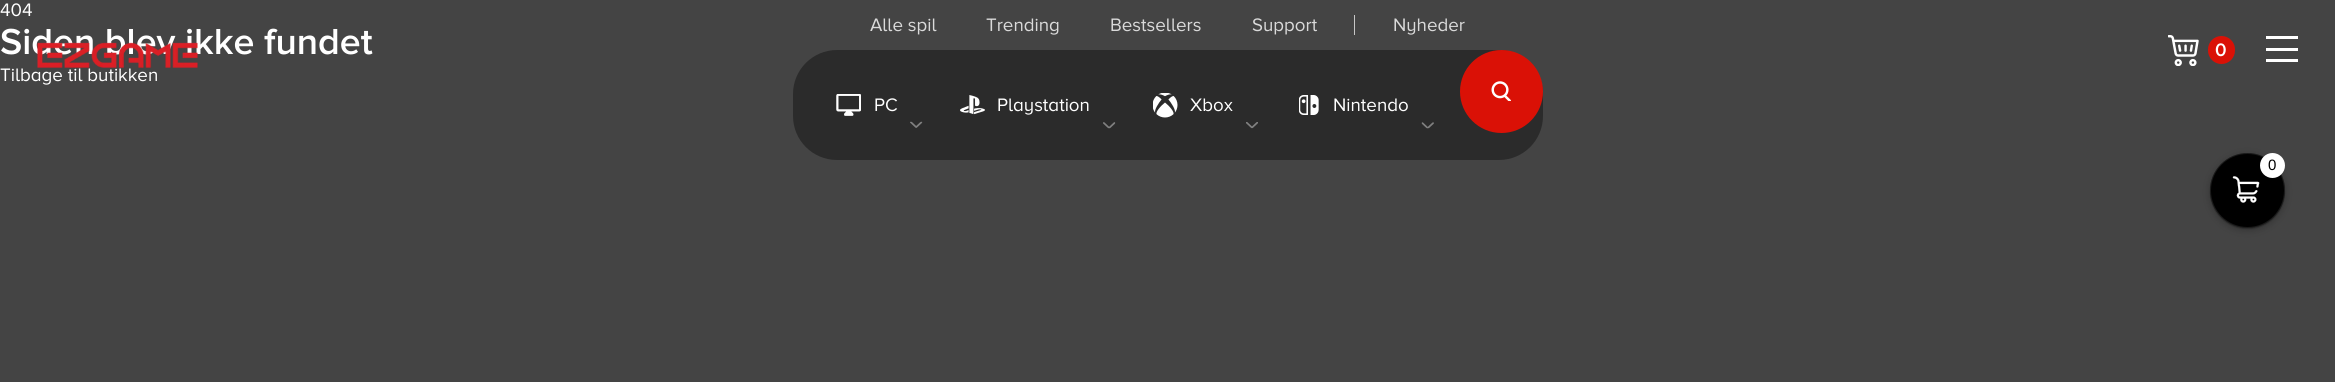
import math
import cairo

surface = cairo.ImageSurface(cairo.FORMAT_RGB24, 2335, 382)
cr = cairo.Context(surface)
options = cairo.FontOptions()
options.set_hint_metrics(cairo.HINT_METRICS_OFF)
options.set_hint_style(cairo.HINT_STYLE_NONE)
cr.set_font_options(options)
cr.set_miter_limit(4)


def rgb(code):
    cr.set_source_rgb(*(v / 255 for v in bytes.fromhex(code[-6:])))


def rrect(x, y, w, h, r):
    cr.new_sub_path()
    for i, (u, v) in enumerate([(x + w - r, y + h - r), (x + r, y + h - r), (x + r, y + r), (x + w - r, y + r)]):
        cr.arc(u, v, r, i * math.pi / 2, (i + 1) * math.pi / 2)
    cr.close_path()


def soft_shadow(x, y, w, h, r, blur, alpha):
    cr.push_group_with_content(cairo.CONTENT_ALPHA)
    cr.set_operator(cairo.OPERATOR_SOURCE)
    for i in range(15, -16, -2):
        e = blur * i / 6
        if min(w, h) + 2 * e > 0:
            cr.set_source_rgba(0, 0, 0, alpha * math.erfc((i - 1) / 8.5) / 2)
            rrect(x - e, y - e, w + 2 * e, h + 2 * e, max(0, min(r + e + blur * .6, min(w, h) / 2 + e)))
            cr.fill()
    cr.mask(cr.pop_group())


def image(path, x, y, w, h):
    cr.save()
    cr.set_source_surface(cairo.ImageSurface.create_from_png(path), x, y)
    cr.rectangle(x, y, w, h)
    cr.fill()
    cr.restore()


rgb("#444444")
cr.paint()
rgb("#c7c7c7")
cr.rectangle(1354, 15, 1, 20)
cr.fill()
rgb("#2b2b2b")
rrect(793, 50, 750, 110, 44)
cr.fill()
image("img/2.png", 836, 94, 25, 22)
image("img/3.png", 910, 121, 13, 7)
image("img/4.png", 960, 95, 25, 20)
image("img/5.png", 1103, 122, 13, 7)
image("img/6.png", 1153, 93, 25, 25)
image("img/7.png", 1246, 122, 12, 7)
image("img/8.png", 1299, 95, 20, 20)
image("img/9.png", 1421, 122, 13, 7)
rgb("#da1106")
cr.arc(1501.5, 91.5, 41.5, 0, 2 * math.pi)
cr.fill()
image("img/10.png", 1491, 81, 20, 20)
image("img/11.png", 2168, 35, 31, 31)
rrect(2208, 36, 27, 28, 13.5)
cr.fill()
for x, y, w, h, color in [
    (2266, 48, 32, 3, "#ffffff"),
    (2266, 36, 32, 3, "#ffffff"),
    (2266, 59, 32, 3, "#ffffff"),
]:
    rgb(color)
    cr.rectangle(x, y, w, h)
    cr.fill()
rgb("#000000")
soft_shadow(2210, 155, 75, 75, 37.5, 4, 0.25)
soft_shadow(2210, 154, 75, 75, 37.5, 0.5, 0.25)
rgb("#000000")
cr.arc(2247.5, 190.5, 37.5, 0, 2 * math.pi)
cr.fill()
cr.arc(2247.5, 190.5, 37, 0, 2 * math.pi)
cr.set_source_rgba(1, 1, 1, 0.1)
cr.set_line_width(1)
cr.stroke()
rgb("#ffffff")
cr.arc(2272.5, 165.5, 12.5, 0, 2 * math.pi)
cr.fill()
image("img/12.png", 2232, 176, 28, 27)
cr.select_font_face("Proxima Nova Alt")
cr.set_font_size(18.75)
cr.move_to(0, 16)
cr.show_text("404")
cr.select_font_face("Proxima Nova SemiBold")
cr.set_font_size(37.5)
cr.move_to(0, 54)
cr.show_text("Siden blev ikke fundet")
cr.select_font_face("Proxima Nova Alt")
cr.set_font_size(18.75)
cr.move_to(0, 81)
cr.show_text("Tilbage til butikken")
image("img/1.png", 37, 42, 161, 26)
rgb("#dadada")
for x, y, s in [
    (870, 31, "Alle spil"),
    (986, 31, "Trending"),
    (1110, 31, "Bestsellers"),
    (1252, 31, "Support"),
    (1393, 31, "Nyheder"),
]:
    cr.move_to(x, y)
    cr.show_text(s)
rgb("#ffffff")
for x, y, s in [
    (874, 111, "PC"),
    (997, 111, "Playstation"),
    (1190, 111, "Xbox"),
    (1333, 111, "Nintendo"),
]:
    cr.move_to(x, y)
    cr.show_text(s)
cr.select_font_face("Proxima Nova SemiBold")
cr.move_to(2215, 56)
cr.show_text("0")
cr.select_font_face("Liberation Sans")
cr.set_font_size(15)
rgb("#000000")
cr.move_to(2268, 170)
cr.show_text("0")
surface.write_to_png("page.png")
